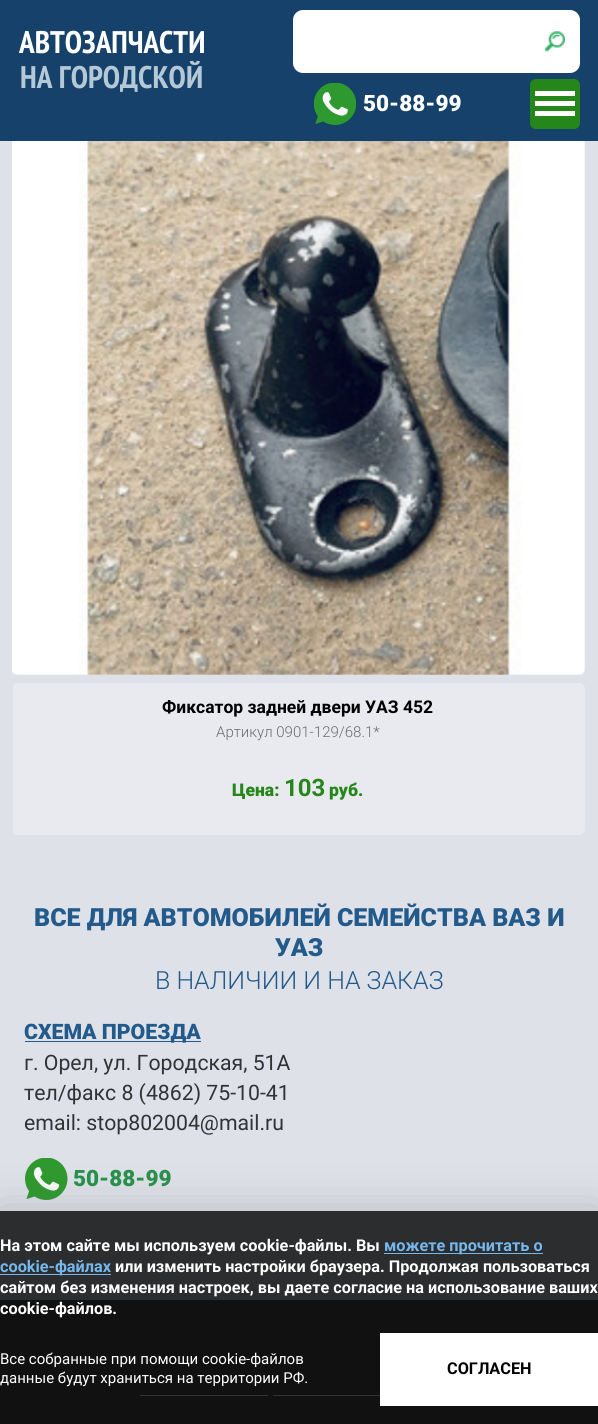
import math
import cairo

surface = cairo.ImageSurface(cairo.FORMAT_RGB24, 598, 1424)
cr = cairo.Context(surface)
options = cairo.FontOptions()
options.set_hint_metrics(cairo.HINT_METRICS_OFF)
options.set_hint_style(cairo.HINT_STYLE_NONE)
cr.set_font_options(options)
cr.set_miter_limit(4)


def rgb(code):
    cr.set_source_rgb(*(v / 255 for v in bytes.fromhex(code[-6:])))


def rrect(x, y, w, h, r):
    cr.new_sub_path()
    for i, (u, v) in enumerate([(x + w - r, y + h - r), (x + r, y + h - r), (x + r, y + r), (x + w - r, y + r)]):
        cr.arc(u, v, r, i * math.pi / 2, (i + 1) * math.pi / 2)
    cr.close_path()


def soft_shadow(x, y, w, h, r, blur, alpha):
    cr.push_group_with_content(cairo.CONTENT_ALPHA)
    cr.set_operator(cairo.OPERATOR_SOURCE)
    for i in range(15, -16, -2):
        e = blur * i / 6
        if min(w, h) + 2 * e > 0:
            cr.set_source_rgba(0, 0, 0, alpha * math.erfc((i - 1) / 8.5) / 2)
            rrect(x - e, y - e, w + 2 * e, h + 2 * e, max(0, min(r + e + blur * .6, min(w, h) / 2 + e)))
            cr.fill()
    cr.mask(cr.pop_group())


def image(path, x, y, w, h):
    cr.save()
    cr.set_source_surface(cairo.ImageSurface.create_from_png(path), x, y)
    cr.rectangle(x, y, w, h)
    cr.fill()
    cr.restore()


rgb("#dee1e8")
cr.paint()
rgb("#15416a")
cr.rectangle(0, 0, 598, 141)
cr.fill()
rgb("#ffffff")
rrect(293, 10, 287, 63, 10)
cr.fill()
image("img/1.png", 545, 31, 20, 21)
image("img/2.png", 314, 83, 42, 42)
rgb("#25861a")
rrect(530, 79, 50, 50, 6)
cr.fill()
for x, y, w, h, color in [
    (535, 91, 40, 5, "#ffffff"),
    (535, 101, 40, 5, "#ffffff"),
    (535, 111, 40, 5, "#ffffff"),
]:
    rgb(color)
    cr.rectangle(x, y, w, h)
    cr.fill()
image("img/3.png", 12, 141, 573, 534)
cr.save()
cr.rectangle(13, 101, 573, 734)
cr.clip()
rgb("#e8eaef")
rrect(11, 683, 574, 152, 6)
cr.fill()
cr.restore()
rgb("#235a8c")
cr.rectangle(25, 1041, 176, 1)
cr.fill()
image("img/4.png", 25, 1158, 43, 42)
for x, y, w, h, color in [
    (0, 1300, 598, 124, "#555555"),
    (140, 1395, 128, 1, "#ffffff"),
    (273, 1395, 107, 1, "#ffffff"),
]:
    rgb(color)
    cr.rectangle(x, y, w, h)
    cr.fill()
cr.save()
cr.set_fill_rule(cairo.FILL_RULE_EVEN_ODD)
cr.new_path()
cr.move_to(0, 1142)
cr.line_to(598, 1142)
cr.line_to(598, 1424)
cr.line_to(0, 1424)
cr.close_path()
cr.move_to(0, 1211)
cr.line_to(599, 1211)
cr.line_to(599, 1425)
cr.line_to(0, 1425)
cr.close_path()
cr.clip()
rgb("#636363")
soft_shadow(0, 1215, 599, 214, 0, 24, 0.38)
cr.restore()
cr.set_source_rgba(0, 0, 0, 0.8)
cr.rectangle(0, 1211, 598, 213)
cr.fill()
rgb("#76b8ee")
cr.rectangle(384, 1253, 159, 1)
cr.rectangle(0, 1274, 111, 1)
cr.fill()
rgb("#ffffff")
cr.rectangle(380, 1333, 218, 73)
cr.fill()
cr.select_font_face("PT Sans Narrow", cairo.FONT_SLANT_NORMAL, cairo.FONT_WEIGHT_BOLD)
cr.set_font_size(31.25)
cr.move_to(19, 53)
cr.show_text("АВТОЗАПЧАСТИ")
rgb("#b5c8d7")
cr.move_to(20, 88)
cr.show_text("НА ГОРОДСКОЙ")
cr.select_font_face("Roboto Black")
cr.set_font_size(22.5)
rgb("#ffffff")
cr.move_to(363, 111)
cr.show_text("50-88-99")
cr.select_font_face("Roboto", cairo.FONT_SLANT_NORMAL, cairo.FONT_WEIGHT_BOLD)
cr.set_font_size(17.5)
rgb("#000000")
cr.move_to(162, 713)
cr.show_text("Фиксатор задней двери УАЗ 452")
cr.select_font_face("Roboto Light")
cr.set_font_size(15)
rgb("#6a6d6e")
cr.move_to(216, 737)
cr.show_text("Артикул 0901-129/68.1*")
cr.select_font_face("Roboto Black")
cr.set_font_size(17.5)
rgb("#25861a")
cr.move_to(232, 796)
cr.show_text("Цена:")
cr.select_font_face("Roboto", cairo.FONT_SLANT_NORMAL, cairo.FONT_WEIGHT_BOLD)
cr.set_font_size(24)
cr.move_to(284, 796)
cr.show_text("103")
cr.select_font_face("Roboto Black")
cr.set_font_size(17.5)
cr.move_to(329, 796)
cr.show_text("руб.")
cr.set_font_size(25)
rgb("#235a8c")
cr.move_to(34, 926)
cr.show_text("ВСЕ ДЛЯ АВТОМОБИЛЕЙ СЕМЕЙСТВА ВАЗ И")
cr.move_to(275, 956)
cr.show_text("УАЗ")
cr.select_font_face("Roboto Light")
cr.move_to(155, 989)
cr.show_text("В НАЛИЧИИ И НА ЗАКАЗ")
cr.select_font_face("Roboto Black")
cr.set_font_size(21.25)
cr.move_to(24, 1039)
cr.show_text("СХЕМА ПРОЕЗДА")
cr.select_font_face("Roboto")
rgb("#303435")
for x, y, s in [
    (24, 1070, "г. Орел, ул. Городская, 51А"),
    (24, 1100, "тел/факс 8 (4862) 75-10-41"),
    (24, 1130, "email: stop802004@mail.ru"),
]:
    cr.move_to(x, y)
    cr.show_text(s)
cr.select_font_face("Roboto Black")
cr.set_font_size(22.5)
rgb("#28904a")
cr.move_to(73, 1186)
cr.show_text("50-88-99")
cr.select_font_face("Roboto", cairo.FONT_SLANT_NORMAL, cairo.FONT_WEIGHT_BOLD)
cr.set_font_size(16.25)
rgb("#ffffff")
cr.move_to(0, 1251)
cr.show_text("На этом сайте мы используем cookie-файлы. Вы")
rgb("#76b8ee")
cr.move_to(384, 1251)
cr.show_text("можете прочитать о")
cr.move_to(0, 1272)
cr.show_text("cookie-файлах")
rgb("#ffffff")
for x, y, s in [
    (115, 1272, "или изменить настройки браузера. Продолжая пользоваться"),
    (0, 1293, "сайтом без изменения настроек, вы даете согласие на использование ваших"),
    (0, 1314, "cookie-файлов."),
]:
    cr.move_to(x, y)
    cr.show_text(s)
cr.select_font_face("Roboto")
cr.set_font_size(15)
cr.move_to(0, 1364)
cr.show_text("Все собранные при помощи cookie-файлов")
cr.move_to(0, 1383)
cr.show_text("данные будут храниться на территории РФ.")
cr.select_font_face("Roboto", cairo.FONT_SLANT_NORMAL, cairo.FONT_WEIGHT_BOLD)
cr.set_font_size(16.25)
rgb("#000000")
cr.move_to(447, 1374)
cr.show_text("СОГЛАСЕН")
surface.write_to_png("page.png")
